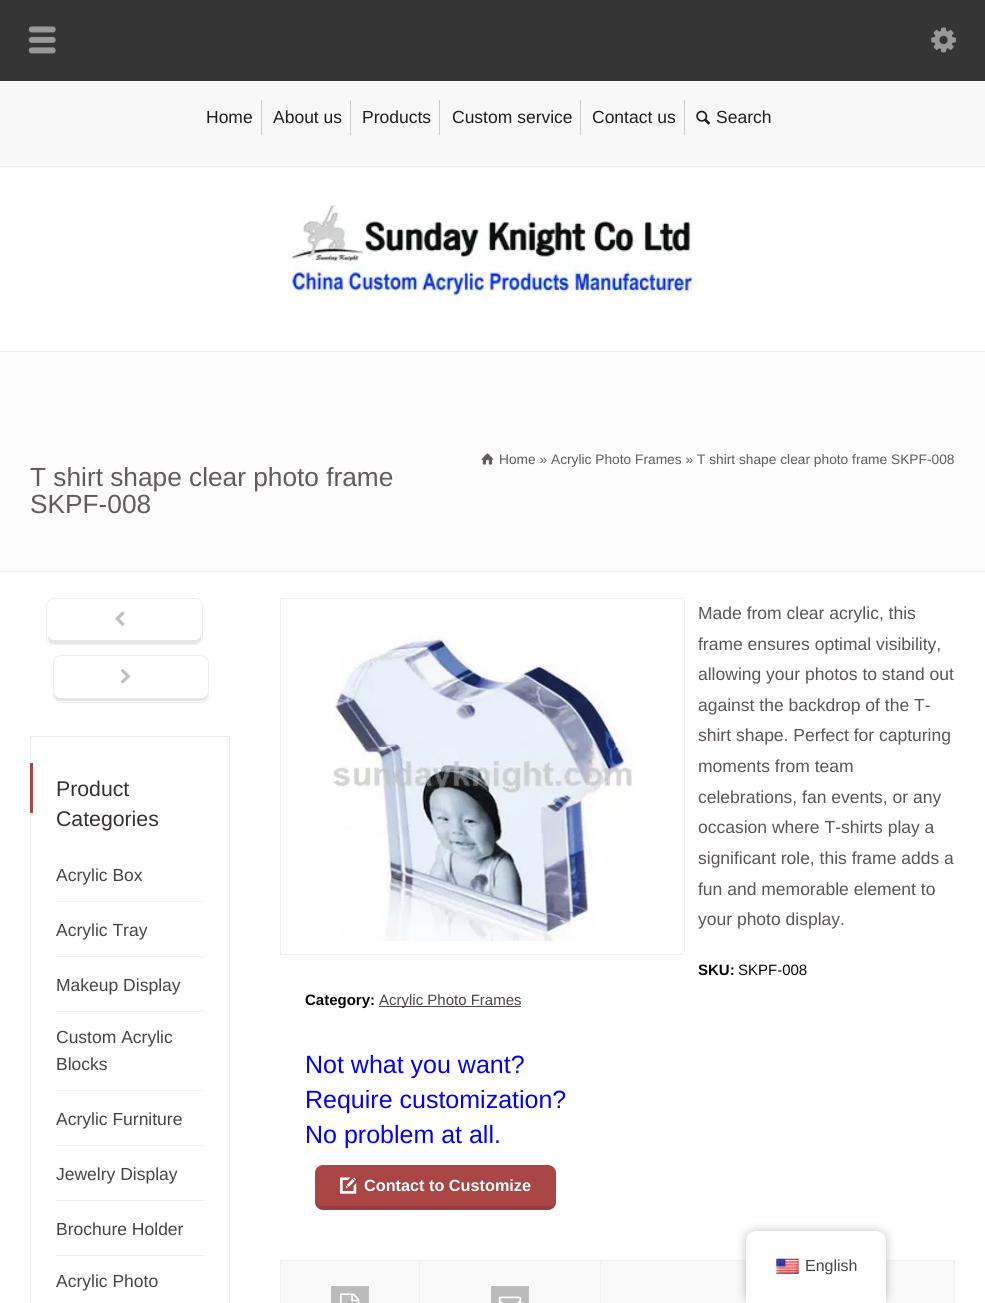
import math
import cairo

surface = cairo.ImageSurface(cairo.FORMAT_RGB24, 985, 1303)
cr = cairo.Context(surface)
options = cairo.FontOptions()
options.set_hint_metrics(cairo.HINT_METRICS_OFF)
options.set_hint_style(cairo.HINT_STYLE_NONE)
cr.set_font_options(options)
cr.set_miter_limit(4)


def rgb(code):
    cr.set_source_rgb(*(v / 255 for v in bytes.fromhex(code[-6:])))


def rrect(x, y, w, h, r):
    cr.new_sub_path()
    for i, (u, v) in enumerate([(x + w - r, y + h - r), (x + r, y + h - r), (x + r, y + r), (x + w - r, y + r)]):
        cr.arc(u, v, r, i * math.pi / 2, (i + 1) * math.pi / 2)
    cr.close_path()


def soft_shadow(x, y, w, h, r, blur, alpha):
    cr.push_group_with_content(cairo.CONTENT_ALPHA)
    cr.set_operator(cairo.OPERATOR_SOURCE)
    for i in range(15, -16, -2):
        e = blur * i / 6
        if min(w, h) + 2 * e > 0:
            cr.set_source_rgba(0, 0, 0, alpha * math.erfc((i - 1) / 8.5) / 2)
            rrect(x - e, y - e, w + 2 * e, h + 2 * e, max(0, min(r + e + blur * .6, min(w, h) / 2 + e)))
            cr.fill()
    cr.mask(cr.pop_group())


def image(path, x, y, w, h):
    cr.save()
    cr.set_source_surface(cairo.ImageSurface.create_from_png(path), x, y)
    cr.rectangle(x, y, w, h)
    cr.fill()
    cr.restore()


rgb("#ffffff")
cr.paint()
rgb("#353535")
cr.rectangle(0, 0, 985, 81)
cr.fill()
image("img/1.png", 28, 26, 28, 28)
image("img/2.png", 931, 27, 25, 26)
for x, y, w, h, color in [
    (0, 81, 985, 87, "#f8f8f8"),
    (0, 166, 985, 1, "#eeeeee"),
    (261, 100, 1, 35, "#cdcdcd"),
    (350, 100, 1, 35, "#cdcdcd"),
    (439, 100, 1, 35, "#cdcdcd"),
    (580, 100, 1, 35, "#cdcdcd"),
    (684, 100, 1, 35, "#cdcdcd"),
]:
    rgb(color)
    cr.rectangle(x, y, w, h)
    cr.fill()
image("img/3.png", 696, 110, 14, 15)
image("img/4.png", 292, 205, 401, 92)
for x, y, w, h, color in [
    (0, 352, 985, 221, "#fcfcfc"),
    (0, 351, 985, 1, "#eeeeee"),
    (0, 571, 985, 1, "#eeeeee"),
]:
    rgb(color)
    cr.rectangle(x, y, w, h)
    cr.fill()
image("img/5.png", 481, 453, 13, 12)
rgb("#e6e6e6")
cr.new_path()
cr.move_to(48, 634)
cr.line_to(48, 638)
cr.curve_to(48, 641, 51, 644, 54, 644)
cr.line_to(195, 644)
cr.curve_to(198, 644, 201, 641, 201, 638)
cr.line_to(201, 634)
cr.curve_to(201, 637, 198, 640, 195, 640)
cr.line_to(54, 640)
cr.curve_to(50, 640, 48, 637, 48, 634)
cr.close_path()
cr.fill()
rrect(46.5, 598.5, 156, 46, 7.5)
rgb("#eeeeee")
cr.set_line_width(1)
cr.stroke()
image("img/6.png", 115, 611, 10, 15)
rgb("#e6e6e6")
cr.new_path()
cr.move_to(54, 691)
cr.line_to(54, 695)
cr.curve_to(54, 698, 57, 701, 60, 701)
cr.line_to(202, 701)
cr.curve_to(205, 701, 208, 698, 208, 695)
cr.line_to(208, 691)
cr.curve_to(208, 695, 205, 698, 201, 698)
cr.line_to(60, 698)
cr.curve_to(57, 698, 54, 695, 54, 691)
cr.close_path()
cr.fill()
rrect(53.5, 655.5, 155, 47, 7.5)
rgb("#eeeeee")
cr.stroke()
image("img/7.png", 120, 669, 11, 15)
cr.rectangle(30.5, 736.5, 199, 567)
rgb("#ededed")
cr.stroke()
for x, y, w, h, color in [
    (30, 763, 3, 50, "#a94545"),
    (56, 901, 148, 1, "#ededed"),
    (56, 956, 148, 1, "#ededed"),
    (56, 1011, 148, 1, "#ededed"),
    (56, 1090, 148, 1, "#ededed"),
    (56, 1145, 148, 1, "#ededed"),
    (56, 1200, 148, 1, "#ededed"),
    (56, 1255, 148, 1, "#ededed"),
]:
    rgb(color)
    cr.rectangle(x, y, w, h)
    cr.fill()
cr.rectangle(280.5, 598.5, 404, 356)
rgb("#f0f0f0")
cr.stroke()
image("img/8.png", 333, 636, 300, 305)
rgb("#4d4243")
cr.rectangle(379, 1006, 142, 1)
cr.fill()
rgb("#a94545")
rrect(315, 1165, 241, 45, 8)
cr.fill()
cr.set_source_rgba(0, 0, 0, 0.1)
cr.new_path()
cr.move_to(315, 1199)
cr.line_to(315, 1202)
cr.curve_to(315, 1206, 319, 1210, 323, 1210)
cr.line_to(548, 1210)
cr.curve_to(552, 1210, 556, 1206, 556, 1202)
cr.line_to(556, 1199)
cr.curve_to(556, 1203, 553, 1206, 549, 1206)
cr.line_to(322, 1206)
cr.curve_to(318, 1206, 315, 1203, 315, 1199)
cr.close_path()
cr.fill()
image("img/9.png", 340, 1177, 17, 17)
cr.rectangle(280.5, 1260.5, 674, 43)
rgb("#f0f0f0")
cr.stroke()
for x, y, w, h, color in [
    (281, 1261, 673, 42, "#f9f9f9"),
    (419, 1261, 1, 42, "#f0f0f0"),
    (331, 1286, 38, 17, "#bbbbbb"),
]:
    rgb(color)
    cr.rectangle(x, y, w, h)
    cr.fill()
image("img/10.png", 340, 1293, 20, 10)
rgb("#f0f0f0")
cr.rectangle(600, 1261, 1, 42)
cr.fill()
rgb("#bbbbbb")
cr.rectangle(491, 1286, 38, 17)
cr.fill()
image("img/11.png", 498, 1296, 24, 7)
rgb("#000000")
soft_shadow(746, 1231, 140, 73, 10, 5, 0.25)
rgb("#ffffff")
cr.new_path()
cr.move_to(756, 1231)
cr.line_to(876, 1231)
cr.curve_to(881.5, 1231, 886, 1235.5, 886, 1241)
cr.line_to(886, 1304)
cr.line_to(746, 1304)
cr.line_to(746, 1241)
cr.curve_to(746, 1235.5, 750.5, 1231, 756, 1231)
cr.close_path()
cr.fill()
image("img/12.png", 776, 1258, 23, 16)
cr.select_font_face("Liberation Sans")
cr.set_font_size(17.5)
rgb("#1f1c1e")
for x, y, s in [
    (206, 123, "Home"),
    (273, 123, "About us"),
    (362, 123, "Products"),
    (452, 123, "Custom service"),
    (592, 123, "Contact us"),
    (716, 123, "Search"),
]:
    cr.move_to(x, y)
    cr.show_text(s)
cr.set_font_size(13.75)
rgb("#615b5b")
cr.move_to(499, 464)
cr.show_text("Home » Acrylic Photo Frames » T shirt shape clear photo frame SKPF-008")
cr.set_font_size(26.25)
cr.move_to(30, 486)
cr.show_text("T shirt shape clear photo frame")
cr.move_to(30, 513)
cr.show_text("SKPF-008")
cr.set_font_size(21.25)
rgb("#353031")
cr.move_to(56, 796)
cr.show_text("Product")
cr.move_to(56, 826)
cr.show_text("Categories")
cr.set_font_size(17.5)
rgb("#444444")
for x, y, s in [
    (56, 881, "Acrylic Box"),
    (56, 936, "Acrylic Tray"),
    (56, 991, "Makeup Display"),
    (56, 1043, "Custom Acrylic"),
    (56, 1070, "Blocks"),
    (56, 1125, "Acrylic Furniture"),
    (56, 1180, "Jewelry Display"),
    (56, 1235, "Brochure Holder"),
    (56, 1287, "Acrylic Photo"),
]:
    cr.move_to(x, y)
    cr.show_text(s)
rgb("#5a5456")
for x, y, s in [
    (698, 619, "Made from clear acrylic, this"),
    (698, 650, "frame ensures optimal visibility,"),
    (698, 680, "allowing your photos to stand out"),
    (698, 711, "against the backdrop of the T-"),
    (698, 741, "shirt shape. Perfect for capturing"),
    (698, 772, "moments from team"),
    (698, 803, "celebrations, fan events, or any"),
    (698, 833, "occasion where T-shirts play a"),
    (698, 864, "significant role, this frame adds a"),
    (698, 895, "fun and memorable element to"),
    (698, 925, "your photo display."),
]:
    cr.move_to(x, y)
    cr.show_text(s)
cr.select_font_face("Liberation Sans", cairo.FONT_SLANT_NORMAL, cairo.FONT_WEIGHT_BOLD)
cr.set_font_size(15)
rgb("#080708")
cr.move_to(698, 975)
cr.show_text("SKU:")
cr.select_font_face("Liberation Sans")
cr.move_to(738, 975)
cr.show_text("SKPF-008")
cr.select_font_face("Liberation Sans", cairo.FONT_SLANT_NORMAL, cairo.FONT_WEIGHT_BOLD)
cr.move_to(305, 1005)
cr.show_text("Category:")
cr.select_font_face("Liberation Sans")
rgb("#4d4243")
cr.move_to(379, 1005)
cr.show_text("Acrylic Photo Frames")
cr.set_font_size(25)
rgb("#0000ff")
for x, y, s in [
    (305, 1073, "Not what you want?"),
    (305, 1108, "Require customization?"),
    (305, 1143, "No problem at all."),
]:
    cr.move_to(x, y)
    cr.show_text(s)
cr.select_font_face("Liberation Sans", cairo.FONT_SLANT_NORMAL, cairo.FONT_WEIGHT_BOLD)
cr.set_font_size(16.25)
rgb("#ffffff")
cr.move_to(364, 1191)
cr.show_text("Contact to Customize")
cr.select_font_face("Liberation Sans")
cr.set_font_size(16)
rgb("#444444")
cr.move_to(805, 1271)
cr.show_text("English")
surface.write_to_png("page.png")
